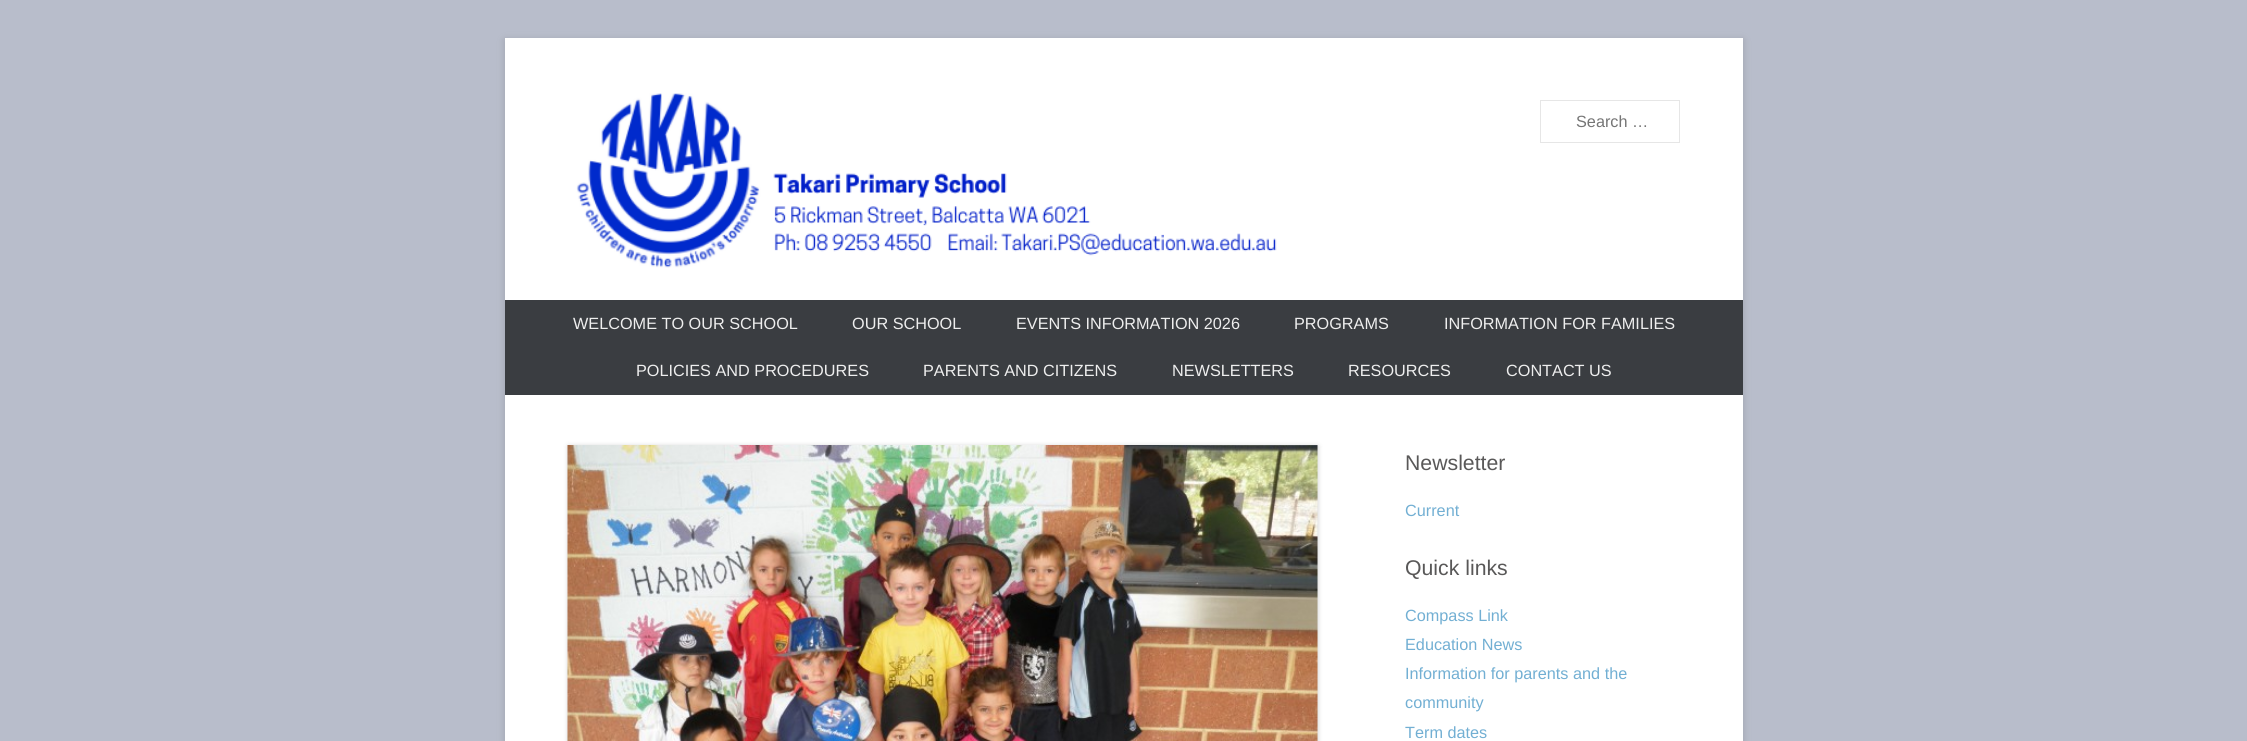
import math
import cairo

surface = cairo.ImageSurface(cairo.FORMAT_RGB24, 2247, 741)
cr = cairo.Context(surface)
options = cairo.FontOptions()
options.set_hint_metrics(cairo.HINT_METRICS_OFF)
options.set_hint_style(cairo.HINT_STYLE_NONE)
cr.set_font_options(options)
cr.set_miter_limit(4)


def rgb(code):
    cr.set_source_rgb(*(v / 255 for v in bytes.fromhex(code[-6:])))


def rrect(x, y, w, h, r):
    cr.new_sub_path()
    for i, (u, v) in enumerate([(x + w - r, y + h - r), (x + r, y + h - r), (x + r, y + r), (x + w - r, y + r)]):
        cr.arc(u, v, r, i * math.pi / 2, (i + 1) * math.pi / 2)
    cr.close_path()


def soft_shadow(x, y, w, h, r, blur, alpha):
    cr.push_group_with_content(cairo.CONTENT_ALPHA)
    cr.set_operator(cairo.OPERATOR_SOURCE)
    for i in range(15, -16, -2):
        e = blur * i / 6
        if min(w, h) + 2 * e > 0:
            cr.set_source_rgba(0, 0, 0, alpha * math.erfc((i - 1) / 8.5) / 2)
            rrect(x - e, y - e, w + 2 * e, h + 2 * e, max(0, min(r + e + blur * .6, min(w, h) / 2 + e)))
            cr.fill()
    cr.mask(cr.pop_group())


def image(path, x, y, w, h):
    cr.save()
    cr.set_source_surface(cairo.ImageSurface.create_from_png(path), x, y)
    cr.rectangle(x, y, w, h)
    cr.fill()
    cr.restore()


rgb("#b8bdcb")
cr.paint()
rgb("#646464")
soft_shadow(505, 40, 1238, 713, 0, 4, 0.3)
rgb("#ffffff")
cr.rectangle(505, 38, 1238, 703)
cr.fill()
image("img/1.png", 576, 93, 701, 175)
cr.rectangle(1540.5, 100.5, 139, 42)
rgb("#e6e6e6")
cr.set_line_width(1)
cr.stroke()
rgb("#3a3d41")
cr.rectangle(505, 300, 1238, 95)
cr.fill()
rgb("#000000")
soft_shadow(568, 446, 750, 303, 0, 2.5, 0.2)
image("img/2.png", 567, 445, 751, 296)
cr.select_font_face("Liberation Sans")
cr.set_font_size(16.25)
rgb("#757575")
cr.move_to(1576, 127)
cr.show_text("Search …")
rgb("#eeeeee")
for x, y, s in [
    (573, 329, "WELCOME TO OUR SCHOOL"),
    (852, 329, "OUR SCHOOL"),
    (1016, 329, "EVENTS INFORMATION 2026"),
    (1294, 329, "PROGRAMS"),
    (1444, 329, "INFORMATION FOR FAMILIES"),
    (636, 376, "POLICIES AND PROCEDURES"),
    (923, 376, "PARENTS AND CITIZENS"),
    (1172, 376, "NEWSLETTERS"),
    (1348, 376, "RESOURCES"),
    (1506, 376, "CONTACT US"),
]:
    cr.move_to(x, y)
    cr.show_text(s)
cr.set_font_size(21.25)
rgb("#595858")
cr.move_to(1405, 470)
cr.show_text("Newsletter")
cr.set_font_size(16.25)
rgb("#72afd3")
cr.move_to(1405, 516)
cr.show_text("Current")
cr.set_font_size(21.25)
rgb("#595858")
cr.move_to(1405, 575)
cr.show_text("Quick links")
cr.set_font_size(16.25)
rgb("#72afd3")
for x, y, s in [
    (1405, 621, "Compass Link"),
    (1405, 650, "Education News"),
    (1405, 679, "Information for parents and the"),
    (1405, 708, "community"),
    (1405, 738, "Term dates"),
]:
    cr.move_to(x, y)
    cr.show_text(s)
surface.write_to_png("page.png")
